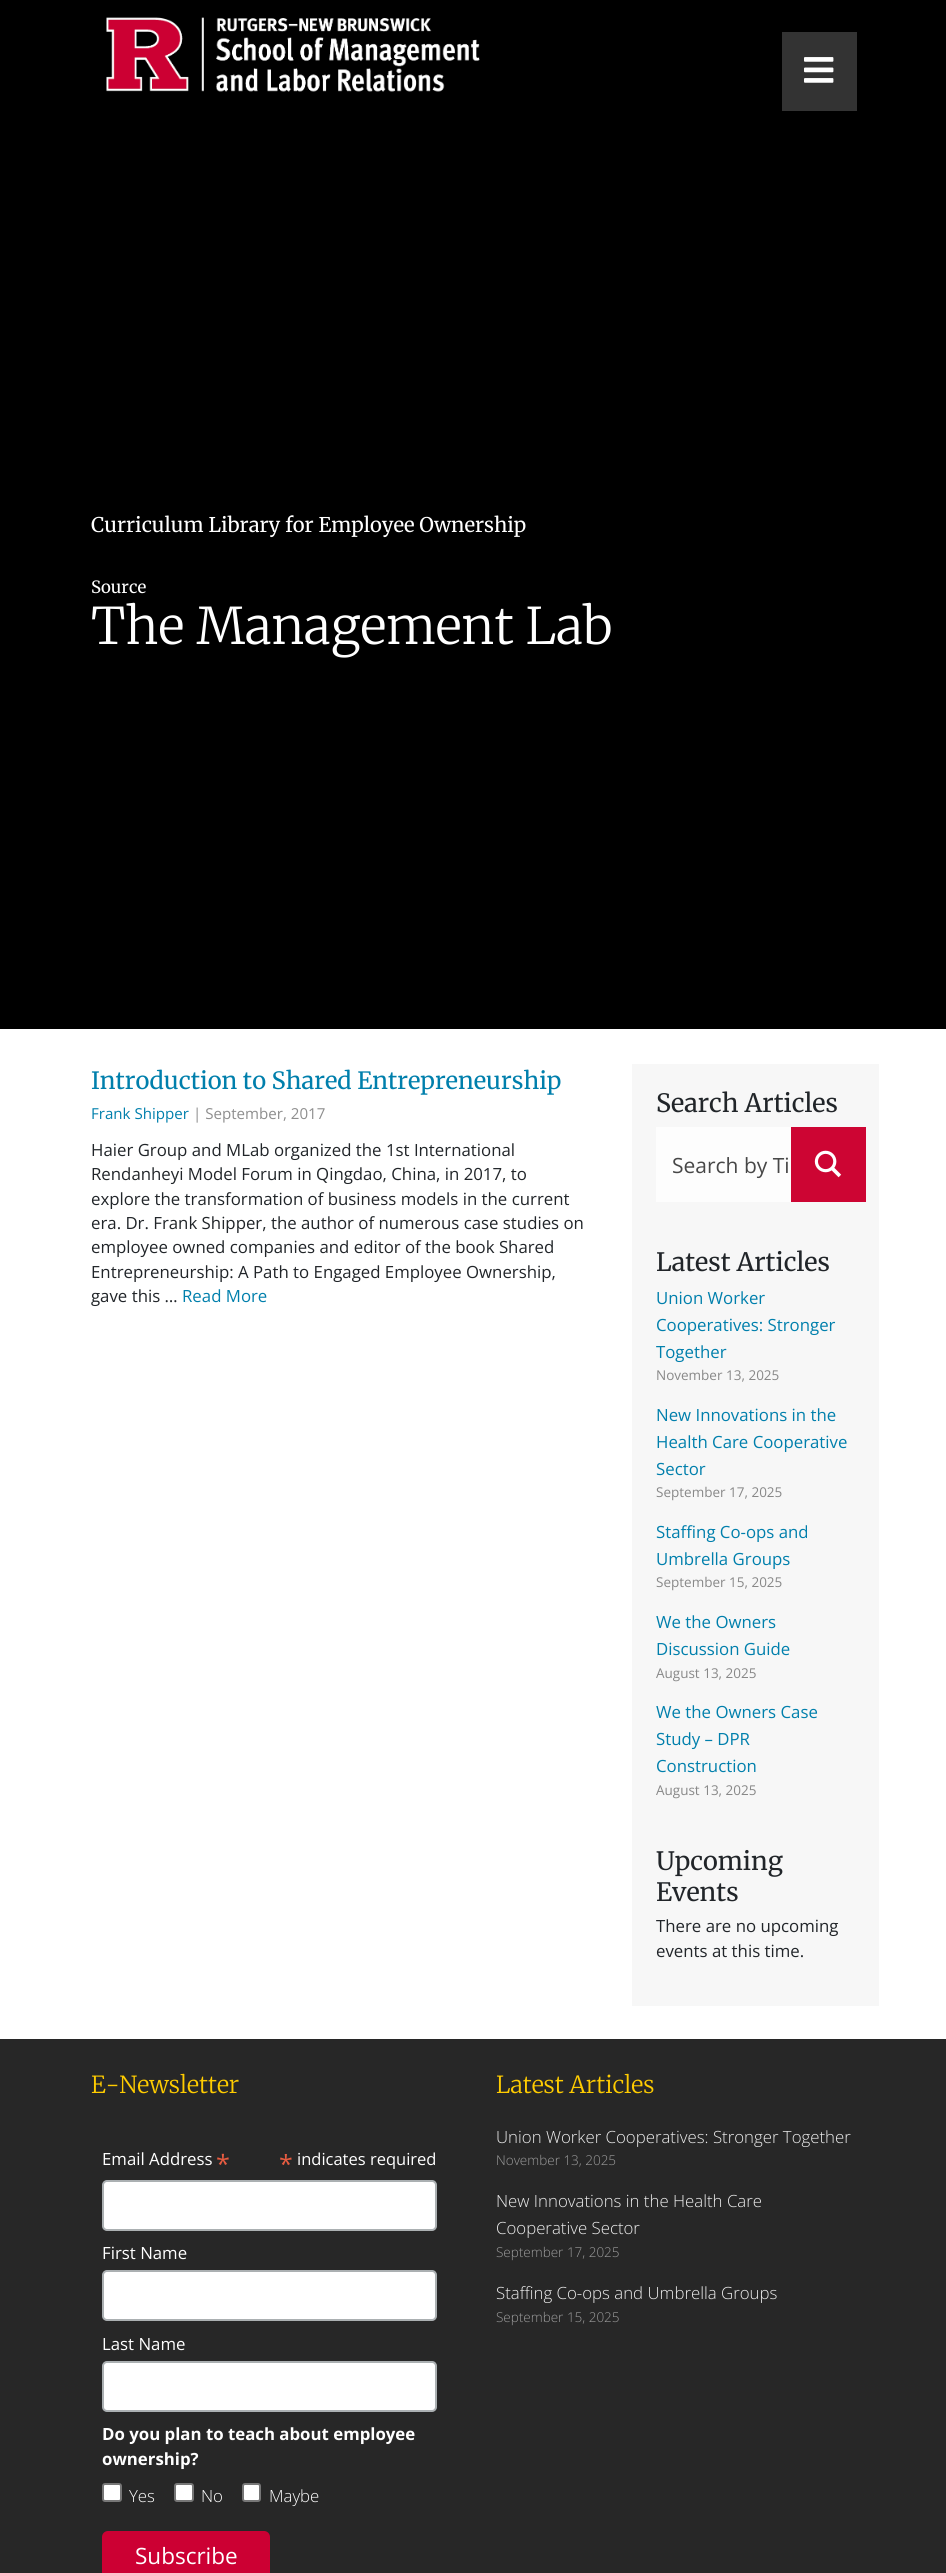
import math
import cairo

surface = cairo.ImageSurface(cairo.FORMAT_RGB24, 946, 2573)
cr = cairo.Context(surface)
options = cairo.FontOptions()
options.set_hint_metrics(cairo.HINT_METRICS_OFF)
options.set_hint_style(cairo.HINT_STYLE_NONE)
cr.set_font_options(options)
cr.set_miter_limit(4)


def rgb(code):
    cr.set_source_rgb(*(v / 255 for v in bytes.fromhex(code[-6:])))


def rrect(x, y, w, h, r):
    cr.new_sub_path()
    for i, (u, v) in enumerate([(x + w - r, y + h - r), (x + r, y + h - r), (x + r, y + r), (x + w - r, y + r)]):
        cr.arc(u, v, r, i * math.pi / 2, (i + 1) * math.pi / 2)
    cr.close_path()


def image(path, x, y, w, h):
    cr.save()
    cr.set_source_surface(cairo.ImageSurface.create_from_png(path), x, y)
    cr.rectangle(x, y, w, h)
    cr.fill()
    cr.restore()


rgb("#ffffff")
cr.paint()
rgb("#000000")
cr.rectangle(0, 0, 946, 1029)
cr.fill()
image("img/1.png", 106, 17, 374, 75)
rgb("#333333")
cr.rectangle(782, 32, 75, 79)
cr.fill()
image("img/2.png", 804, 57, 30, 26)
for x, y, w, h, color in [
    (632, 1064, 247, 942, "#f7f7f7"),
    (656, 1127, 135, 75, "#fdfdfd"),
    (791, 1127, 75, 75, "#cd0533"),
]:
    rgb(color)
    cr.rectangle(x, y, w, h)
    cr.fill()
image("img/3.png", 814, 1150, 28, 28)
rgb("#272727")
cr.rectangle(0, 2039, 946, 534)
cr.fill()
rgb("#ffffff")
rrect(103, 2181, 333, 49, 4)
cr.fill_preserve()
rgb("#abb0b2")
cr.stroke()
rgb("#ffffff")
rrect(103, 2271, 333, 49, 4)
cr.fill_preserve()
rgb("#abb0b2")
cr.stroke()
rgb("#ffffff")
rrect(103, 2362, 333, 49, 4)
cr.fill_preserve()
rgb("#abb0b2")
cr.stroke()
rgb("#ffffff")
rrect(103, 2484, 18, 17, 2)
cr.fill_preserve()
rgb("#767676")
cr.stroke()
rgb("#ffffff")
rrect(175, 2484, 18, 17, 2)
cr.fill_preserve()
rgb("#767676")
cr.stroke()
rgb("#ffffff")
rrect(243, 2484, 17, 17, 2)
cr.fill_preserve()
rgb("#767676")
cr.stroke()
rgb("#cc0033")
rrect(102, 2531, 168, 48, 6)
cr.fill()
cr.select_font_face("Merriweather")
cr.set_font_size(20.2)
rgb("#ffffff")
cr.move_to(91, 532)
cr.show_text("Curriculum Library for Employee Ownership")
cr.set_font_size(16.8)
cr.move_to(91, 593)
cr.show_text("Source")
cr.select_font_face("Merriweather Light")
cr.set_font_size(50.4)
cr.move_to(91, 644)
cr.show_text("The Management Lab")
cr.select_font_face("Merriweather")
cr.set_font_size(23.75)
rgb("#007fac")
cr.move_to(91, 1089)
cr.show_text("Introduction to Shared Entrepreneurship")
cr.select_font_face("Open Sans")
cr.set_font_size(15.1)
cr.move_to(91, 1119)
cr.show_text("Frank Shipper")
rgb("#8e8e8e")
cr.move_to(193, 1119)
cr.show_text("| September, 2017")
cr.set_font_size(16.8)
rgb("#212529")
for x, y, s in [
    (91, 1156, "Haier Group and MLab organized the 1st International"),
    (91, 1180, "Rendanheyi Model Forum in Qingdao, China, in 2017, to"),
    (91, 1205, "explore the transformation of business models in the current"),
    (91, 1229, "era. Dr. Frank Shipper, the author of numerous case studies on"),
    (91, 1253, "employee owned companies and editor of the book Shared"),
    (91, 1278, "Entrepreneurship: A Path to Engaged Employee Ownership,"),
    (91, 1302, "gave this …"),
]:
    cr.move_to(x, y)
    cr.show_text(s)
rgb("#007fac")
cr.move_to(182, 1302)
cr.show_text("Read More")
cr.select_font_face("Merriweather")
cr.set_font_size(25.25)
rgb("#212529")
cr.move_to(656, 1112)
cr.show_text("Search Articles")
cr.select_font_face("Open Sans")
cr.set_font_size(21)
rgb("#474747")
cr.move_to(672, 1173)
cr.show_text("Search by Ti")
cr.select_font_face("Merriweather")
cr.set_font_size(25.25)
rgb("#212529")
cr.move_to(656, 1271)
cr.show_text("Latest Articles")
cr.select_font_face("Open Sans")
cr.set_font_size(16.8)
rgb("#007fac")
for x, y, s in [
    (656, 1304, "Union Worker"),
    (656, 1331, "Cooperatives: Stronger"),
    (656, 1358, "Together"),
]:
    cr.move_to(x, y)
    cr.show_text(s)
cr.set_font_size(13.5)
rgb("#888888")
cr.move_to(656, 1380)
cr.show_text("November 13, 2025")
cr.set_font_size(16.8)
rgb("#007fac")
for x, y, s in [
    (656, 1421, "New Innovations in the"),
    (656, 1448, "Health Care Cooperative"),
    (656, 1475, "Sector"),
]:
    cr.move_to(x, y)
    cr.show_text(s)
cr.set_font_size(13.5)
rgb("#888888")
cr.move_to(656, 1497)
cr.show_text("September 17, 2025")
cr.set_font_size(16.8)
rgb("#007fac")
cr.move_to(656, 1538)
cr.show_text("Staffing Co-ops and")
cr.move_to(656, 1565)
cr.show_text("Umbrella Groups")
cr.set_font_size(13.5)
rgb("#888888")
cr.move_to(656, 1587)
cr.show_text("September 15, 2025")
cr.set_font_size(16.8)
rgb("#007fac")
cr.move_to(656, 1628)
cr.show_text("We the Owners")
cr.move_to(656, 1655)
cr.show_text("Discussion Guide")
cr.set_font_size(13.5)
rgb("#888888")
cr.move_to(656, 1678)
cr.show_text("August 13, 2025")
cr.set_font_size(16.8)
rgb("#007fac")
for x, y, s in [
    (656, 1718, "We the Owners Case"),
    (656, 1745, "Study – DPR"),
    (656, 1772, "Construction"),
]:
    cr.move_to(x, y)
    cr.show_text(s)
cr.set_font_size(13.5)
rgb("#888888")
cr.move_to(656, 1795)
cr.show_text("August 13, 2025")
cr.select_font_face("Merriweather")
cr.set_font_size(25.25)
rgb("#212529")
cr.move_to(656, 1870)
cr.show_text("Upcoming")
cr.move_to(656, 1901)
cr.show_text("Events")
cr.select_font_face("Open Sans")
cr.set_font_size(16.8)
cr.move_to(656, 1932)
cr.show_text("There are no upcoming")
cr.move_to(656, 1957)
cr.show_text("events at this time.")
cr.select_font_face("Merriweather Light")
cr.set_font_size(23.5)
rgb("#ffcc00")
cr.move_to(91, 2093)
cr.show_text("E-Newsletter")
cr.select_font_face("Open Sans")
cr.set_font_size(16.8)
rgb("#ffffff")
cr.move_to(102, 2165)
cr.show_text("Email Address")
cr.set_font_size(25.25)
rgb("#e85c41")
cr.move_to(216, 2173)
cr.show_text("*")
cr.set_font_size(25)
cr.move_to(279, 2173)
cr.show_text("*")
cr.set_font_size(16.5)
rgb("#ffffff")
cr.move_to(297, 2165)
cr.show_text("indicates required")
cr.set_font_size(16.8)
cr.move_to(102, 2259)
cr.show_text("First Name")
cr.move_to(102, 2350)
cr.show_text("Last Name")
cr.select_font_face("Open Sans", cairo.FONT_SLANT_NORMAL, cairo.FONT_WEIGHT_BOLD)
cr.move_to(102, 2440)
cr.show_text("Do you plan to teach about employee")
cr.move_to(102, 2465)
cr.show_text("ownership?")
cr.select_font_face("Open Sans Light")
for x, y, s in [
    (129, 2502, "Yes"),
    (201, 2502, "No"),
    (269, 2502, "Maybe"),
]:
    cr.move_to(x, y)
    cr.show_text(s)
cr.select_font_face("Open Sans")
cr.set_font_size(22.5)
cr.move_to(135, 2564)
cr.show_text("Subscribe")
cr.select_font_face("Merriweather Light")
cr.set_font_size(23.5)
rgb("#ffcc00")
cr.move_to(496, 2093)
cr.show_text("Latest Articles")
cr.select_font_face("Open Sans Light")
cr.set_font_size(16.8)
rgb("#ededed")
cr.move_to(496, 2143)
cr.show_text("Union Worker Cooperatives: Stronger Together")
cr.set_font_size(13.5)
rgb("#9c9c9c")
cr.move_to(496, 2165)
cr.show_text("November 13, 2025")
cr.set_font_size(16.8)
rgb("#ededed")
cr.move_to(496, 2207)
cr.show_text("New Innovations in the Health Care")
cr.move_to(496, 2234)
cr.show_text("Cooperative Sector")
cr.set_font_size(13.5)
rgb("#9c9c9c")
cr.move_to(496, 2257)
cr.show_text("September 17, 2025")
cr.set_font_size(16.8)
rgb("#ededed")
cr.move_to(496, 2299)
cr.show_text("Staffing Co-ops and Umbrella Groups")
cr.set_font_size(13.5)
rgb("#9c9c9c")
cr.move_to(496, 2322)
cr.show_text("September 15, 2025")
surface.write_to_png("page.png")
